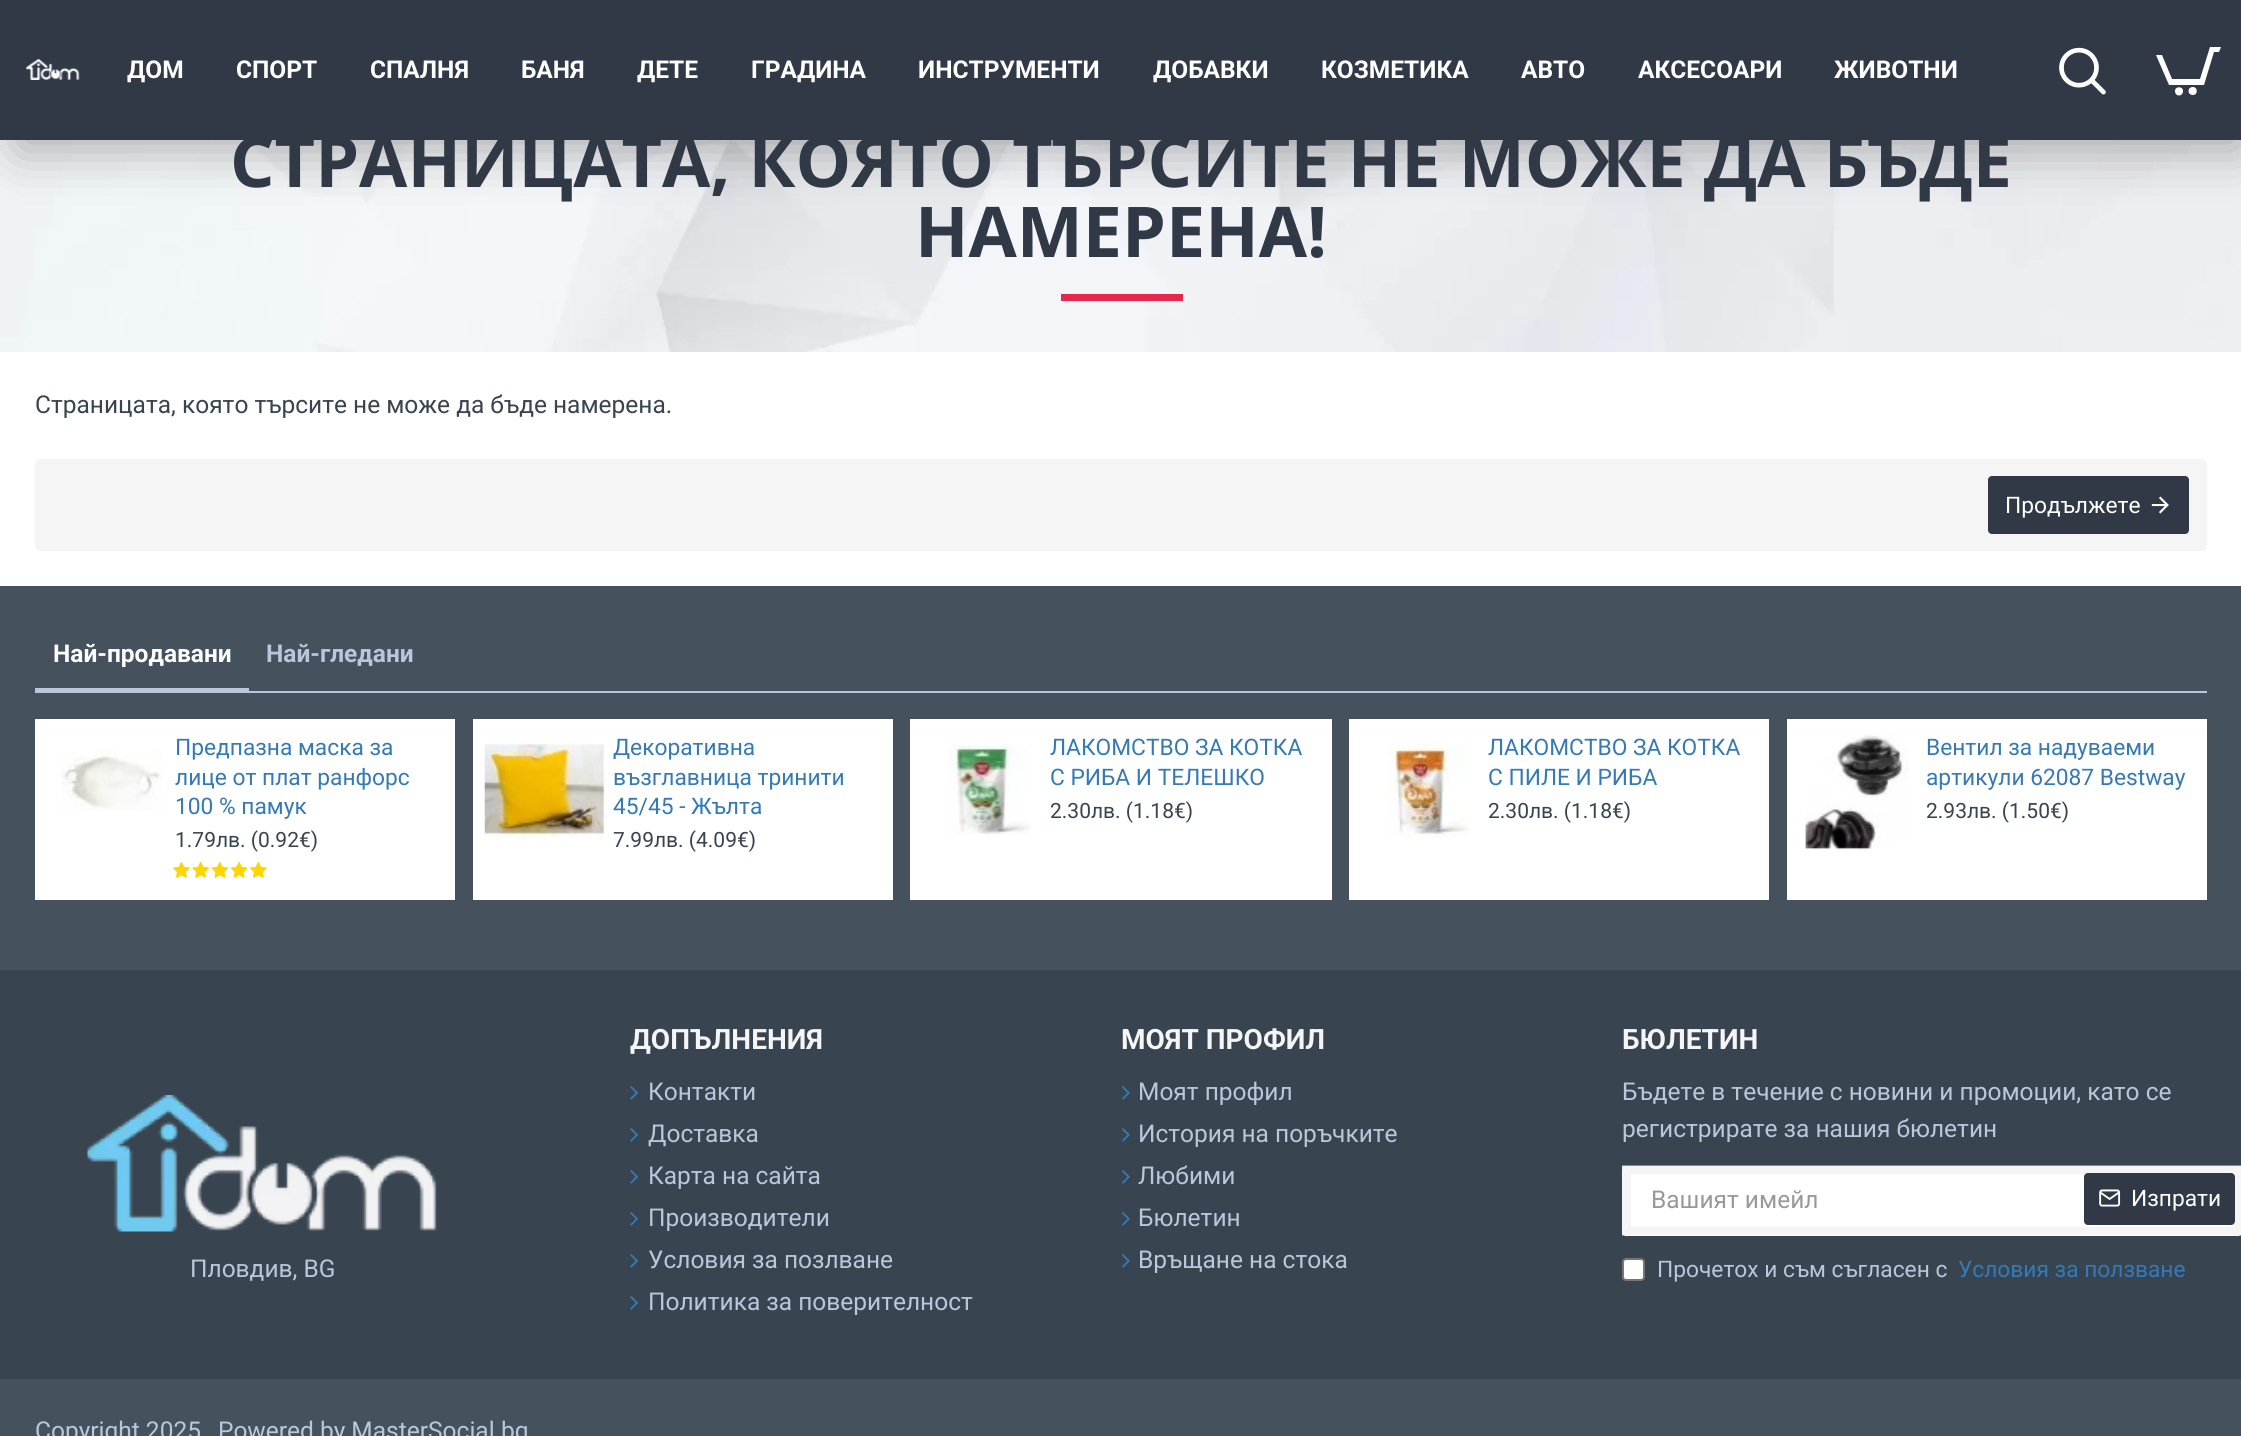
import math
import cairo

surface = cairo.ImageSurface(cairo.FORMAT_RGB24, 2241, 1436)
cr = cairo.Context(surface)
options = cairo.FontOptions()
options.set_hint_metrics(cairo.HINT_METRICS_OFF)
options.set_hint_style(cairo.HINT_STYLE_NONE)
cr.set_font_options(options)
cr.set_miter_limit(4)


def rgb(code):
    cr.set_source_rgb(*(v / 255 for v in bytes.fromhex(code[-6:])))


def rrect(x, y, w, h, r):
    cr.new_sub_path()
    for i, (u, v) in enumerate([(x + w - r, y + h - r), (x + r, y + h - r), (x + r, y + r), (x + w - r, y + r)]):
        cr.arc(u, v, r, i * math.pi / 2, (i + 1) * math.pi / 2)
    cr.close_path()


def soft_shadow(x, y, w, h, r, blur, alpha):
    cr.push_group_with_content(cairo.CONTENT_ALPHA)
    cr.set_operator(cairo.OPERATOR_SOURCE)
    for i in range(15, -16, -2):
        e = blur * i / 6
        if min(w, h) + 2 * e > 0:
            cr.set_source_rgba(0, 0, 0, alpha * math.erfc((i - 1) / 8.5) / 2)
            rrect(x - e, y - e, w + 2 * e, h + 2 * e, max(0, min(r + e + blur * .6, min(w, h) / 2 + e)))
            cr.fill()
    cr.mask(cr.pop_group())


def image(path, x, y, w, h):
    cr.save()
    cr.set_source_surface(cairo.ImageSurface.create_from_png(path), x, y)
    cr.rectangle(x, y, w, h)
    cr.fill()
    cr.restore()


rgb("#ffffff")
cr.paint()
image("img/3.png", 0, 140, 2241, 212)
rgb("#000000")
soft_shadow(18, -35, 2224, 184, 0, 26, 0.3)
rgb("#313846")
cr.rectangle(0, 0, 2241, 140)
cr.fill()
image("img/1.png", 26, 59, 54, 21)
image("img/2.png", 2059, 47, 47, 48)
rgb("#ffffff")
cr.new_path()
cr.move_to(2183, 91)
cr.curve_to(2183, 97, 2175, 97, 2175, 91)
cr.curve_to(2175, 86, 2183, 86, 2183, 91)
cr.close_path()
cr.move_to(2193, 87)
cr.curve_to(2187, 87, 2187, 95, 2193, 95)
cr.curve_to(2198, 95, 2198, 87, 2193, 87)
cr.close_path()
cr.move_to(2210, 47)
cr.line_to(2200, 79)
cr.line_to(2172, 79)
cr.line_to(2162, 55)
cr.line_to(2156, 55)
cr.line_to(2169, 85)
cr.line_to(2204, 85)
cr.line_to(2214, 52)
cr.line_to(2219, 52)
cr.line_to(2221, 47)
cr.close_path()
cr.fill()
rgb("#e7284d")
cr.rectangle(1061, 294, 122, 7)
cr.fill()
rgb("#f5f5f5")
rrect(35, 459, 2172, 92, 5)
cr.fill()
rgb("#313846")
rrect(1988, 476, 201, 58, 4)
cr.fill()
image("img/4.png", 2151, 496, 18, 18)
for x, y, w, h, color in [
    (0, 970, 2241, 409, "#38444f"),
    (0, 586, 2241, 384, "#45525e"),
    (35, 691, 2172, 2, "#bbc6dd"),
    (35, 688, 214, 3, "#bbc6dd"),
    (35, 719, 420, 181, "#ffffff"),
]:
    rgb(color)
    cr.rectangle(x, y, w, h)
    cr.fill()
image("img/5.png", 61, 751, 102, 60)
image("img/6.png", 173, 862, 17, 16)
image("img/7.png", 173, 862, 17, 16)
image("img/8.png", 192, 862, 17, 16)
image("img/9.png", 192, 862, 17, 16)
image("img/10.png", 211, 862, 17, 16)
image("img/11.png", 211, 862, 17, 16)
image("img/12.png", 231, 862, 17, 16)
image("img/13.png", 231, 862, 17, 16)
image("img/6.png", 250, 862, 17, 16)
image("img/7.png", 250, 862, 17, 16)
cr.rectangle(473, 719, 420, 181)
cr.fill()
image("img/14.png", 484, 743, 121, 96)
cr.rectangle(910, 719, 422, 181)
cr.fill()
image("img/15.png", 948, 744, 83, 91)
cr.rectangle(1349, 719, 420, 181)
cr.fill()
image("img/16.png", 1388, 744, 81, 94)
cr.rectangle(1787, 719, 420, 181)
cr.fill()
image("img/17.png", 1805, 734, 103, 116)
image("img/18.png", 87, 1095, 350, 137)
image("img/19.png", 630, 1086, 9, 14)
image("img/19.png", 630, 1128, 9, 14)
image("img/19.png", 630, 1170, 9, 14)
image("img/19.png", 630, 1212, 9, 14)
image("img/19.png", 630, 1254, 9, 14)
image("img/19.png", 630, 1296, 9, 14)
image("img/20.png", 1122, 1086, 8, 14)
image("img/20.png", 1122, 1128, 8, 14)
image("img/20.png", 1122, 1170, 8, 14)
image("img/20.png", 1122, 1212, 8, 14)
image("img/20.png", 1122, 1254, 8, 14)
rrect(1622, 1166, 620, 70, 4)
cr.fill()
cr.new_path()
cr.move_to(1626.5, 1170)
cr.line_to(2237.5, 1170)
cr.line_to(2237.5, 1231)
cr.line_to(1626.5, 1231)
cr.close_path()
rgb("#f5f5f5")
cr.set_line_width(8.8)
cr.stroke()
rgb("#313846")
rrect(2084, 1173, 151, 52, 4)
cr.fill()
image("img/21.png", 2099, 1189, 22, 18)
rgb("#ffffff")
rrect(1623, 1259, 21, 21, 3)
cr.fill_preserve()
rgb("#767676")
cr.set_line_width(2)
cr.stroke()
rgb("#45525e")
cr.rectangle(0, 1379, 2241, 57)
cr.fill()
cr.select_font_face("Roboto", cairo.FONT_SLANT_NORMAL, cairo.FONT_WEIGHT_BOLD)
cr.set_font_size(24.5)
rgb("#ffffff")
for x, y, s in [
    (127, 78, "ДОМ"),
    (236, 78, "СПОРТ"),
    (370, 78, "СПАЛНЯ"),
    (521, 78, "БАНЯ"),
    (637, 78, "ДЕТЕ"),
    (751, 78, "ГРАДИНА"),
    (918, 78, "ИНСТРУМЕНТИ"),
    (1153, 78, "ДОБАВКИ"),
    (1321, 78, "КОЗМЕТИКА"),
    (1521, 78, "АВТО"),
    (1638, 78, "АКСЕСОАРИ"),
    (1834, 78, "ЖИВОТНИ"),
]:
    cr.move_to(x, y)
    cr.show_text(s)
cr.select_font_face("Open Sans", cairo.FONT_SLANT_NORMAL, cairo.FONT_WEIGHT_BOLD)
cr.set_font_size(70)
rgb("#313846")
cr.move_to(230, 187)
cr.show_text("СТРАНИЦАТА, КОЯТО ТЪРСИТЕ НЕ МОЖЕ ДА БЪДЕ")
cr.move_to(915, 257)
cr.show_text("НАМЕРЕНА!")
cr.select_font_face("Roboto")
cr.set_font_size(24.5)
rgb("#38444f")
cr.move_to(35, 413)
cr.show_text("Страницата, която търсите не може да бъде намерена.")
cr.set_font_size(22.75)
rgb("#ffffff")
cr.move_to(2005, 513)
cr.show_text("Продължете")
cr.select_font_face("Roboto", cairo.FONT_SLANT_NORMAL, cairo.FONT_WEIGHT_BOLD)
cr.set_font_size(24.5)
cr.move_to(53, 662)
cr.show_text("Най-продавани")
rgb("#bbc6dd")
cr.move_to(266, 662)
cr.show_text("Най-гледани")
cr.select_font_face("Roboto")
cr.set_font_size(22.75)
rgb("#337ab7")
for x, y, s in [
    (175, 755, "Предпазна маска за"),
    (175, 785, "лице от плат ранфорс"),
    (175, 814, "100 % памук"),
]:
    cr.move_to(x, y)
    cr.show_text(s)
cr.set_font_size(21)
rgb("#38444f")
cr.move_to(175, 847)
cr.show_text("1.79лв. (0.92€)")
cr.set_font_size(22.75)
rgb("#337ab7")
for x, y, s in [
    (613, 755, "Декоративна"),
    (613, 785, "възглавница тринити"),
    (613, 814, "45/45 - Жълта"),
]:
    cr.move_to(x, y)
    cr.show_text(s)
cr.set_font_size(21)
rgb("#38444f")
cr.move_to(613, 847)
cr.show_text("7.99лв. (4.09€)")
cr.set_font_size(22.75)
rgb("#337ab7")
cr.move_to(1050, 755)
cr.show_text("ЛАКОМСТВО ЗА КОТКА")
cr.move_to(1050, 785)
cr.show_text("С РИБА И ТЕЛЕШКО")
cr.set_font_size(21)
rgb("#38444f")
cr.move_to(1050, 818)
cr.show_text("2.30лв. (1.18€)")
cr.set_font_size(22.75)
rgb("#337ab7")
cr.move_to(1488, 755)
cr.show_text("ЛАКОМСТВО ЗА КОТКА")
cr.move_to(1488, 785)
cr.show_text("С ПИЛЕ И РИБА")
cr.set_font_size(21)
rgb("#38444f")
cr.move_to(1488, 818)
cr.show_text("2.30лв. (1.18€)")
cr.set_font_size(22.75)
rgb("#337ab7")
cr.move_to(1926, 755)
cr.show_text("Вентил за надуваеми")
cr.move_to(1926, 785)
cr.show_text("артикули 62087 Bestway")
cr.set_font_size(21)
rgb("#38444f")
cr.move_to(1926, 818)
cr.show_text("2.93лв. (1.50€)")
cr.set_font_size(24.5)
rgb("#bbc6dd")
cr.move_to(190, 1277)
cr.show_text("Пловдив, BG")
cr.select_font_face("Roboto", cairo.FONT_SLANT_NORMAL, cairo.FONT_WEIGHT_BOLD)
cr.set_font_size(28)
rgb("#f5f5f5")
cr.move_to(630, 1049)
cr.show_text("ДОПЪЛНЕНИЯ")
cr.select_font_face("Roboto")
cr.set_font_size(24.5)
rgb("#bbc6dd")
for x, y, s in [
    (648, 1100, "Контакти"),
    (648, 1142, "Доставка"),
    (648, 1184, "Карта на сайта"),
    (648, 1226, "Производители"),
    (648, 1268, "Условия за позлване"),
    (648, 1310, "Политика за поверителност"),
]:
    cr.move_to(x, y)
    cr.show_text(s)
cr.select_font_face("Roboto", cairo.FONT_SLANT_NORMAL, cairo.FONT_WEIGHT_BOLD)
cr.set_font_size(28)
rgb("#f5f5f5")
cr.move_to(1121, 1049)
cr.show_text("МОЯТ ПРОФИЛ")
cr.select_font_face("Roboto")
cr.set_font_size(24.5)
rgb("#bbc6dd")
for x, y, s in [
    (1138, 1100, "Моят профил"),
    (1138, 1142, "История на поръчките"),
    (1138, 1184, "Любими"),
    (1138, 1226, "Бюлетин"),
    (1138, 1268, "Връщане на стока"),
]:
    cr.move_to(x, y)
    cr.show_text(s)
cr.select_font_face("Roboto", cairo.FONT_SLANT_NORMAL, cairo.FONT_WEIGHT_BOLD)
cr.set_font_size(28)
rgb("#f5f5f5")
cr.move_to(1622, 1049)
cr.show_text("БЮЛЕТИН")
cr.select_font_face("Roboto")
cr.set_font_size(24.5)
rgb("#bbc6dd")
cr.move_to(1622, 1100)
cr.show_text("Бъдете в течение с новини и промоции, като се")
cr.move_to(1622, 1137)
cr.show_text("регистрирате за нашия бюлетин")
rgb("#999999")
cr.move_to(1651, 1208)
cr.show_text("Вашият имейл")
cr.set_font_size(22.75)
rgb("#ffffff")
cr.move_to(2131, 1206)
cr.show_text("Изпрати")
rgb("#bbc6dd")
cr.move_to(1657, 1277)
cr.show_text("Прочетох и съм съгласен с")
rgb("#337ab7")
cr.move_to(1958, 1277)
cr.show_text("Условия за ползване")
cr.set_font_size(24.5)
rgb("#bbc6dd")
cr.move_to(35, 1439)
cr.show_text("Copyright 2025 , Powered by MasterSocial.bg")
surface.write_to_png("page.png")
